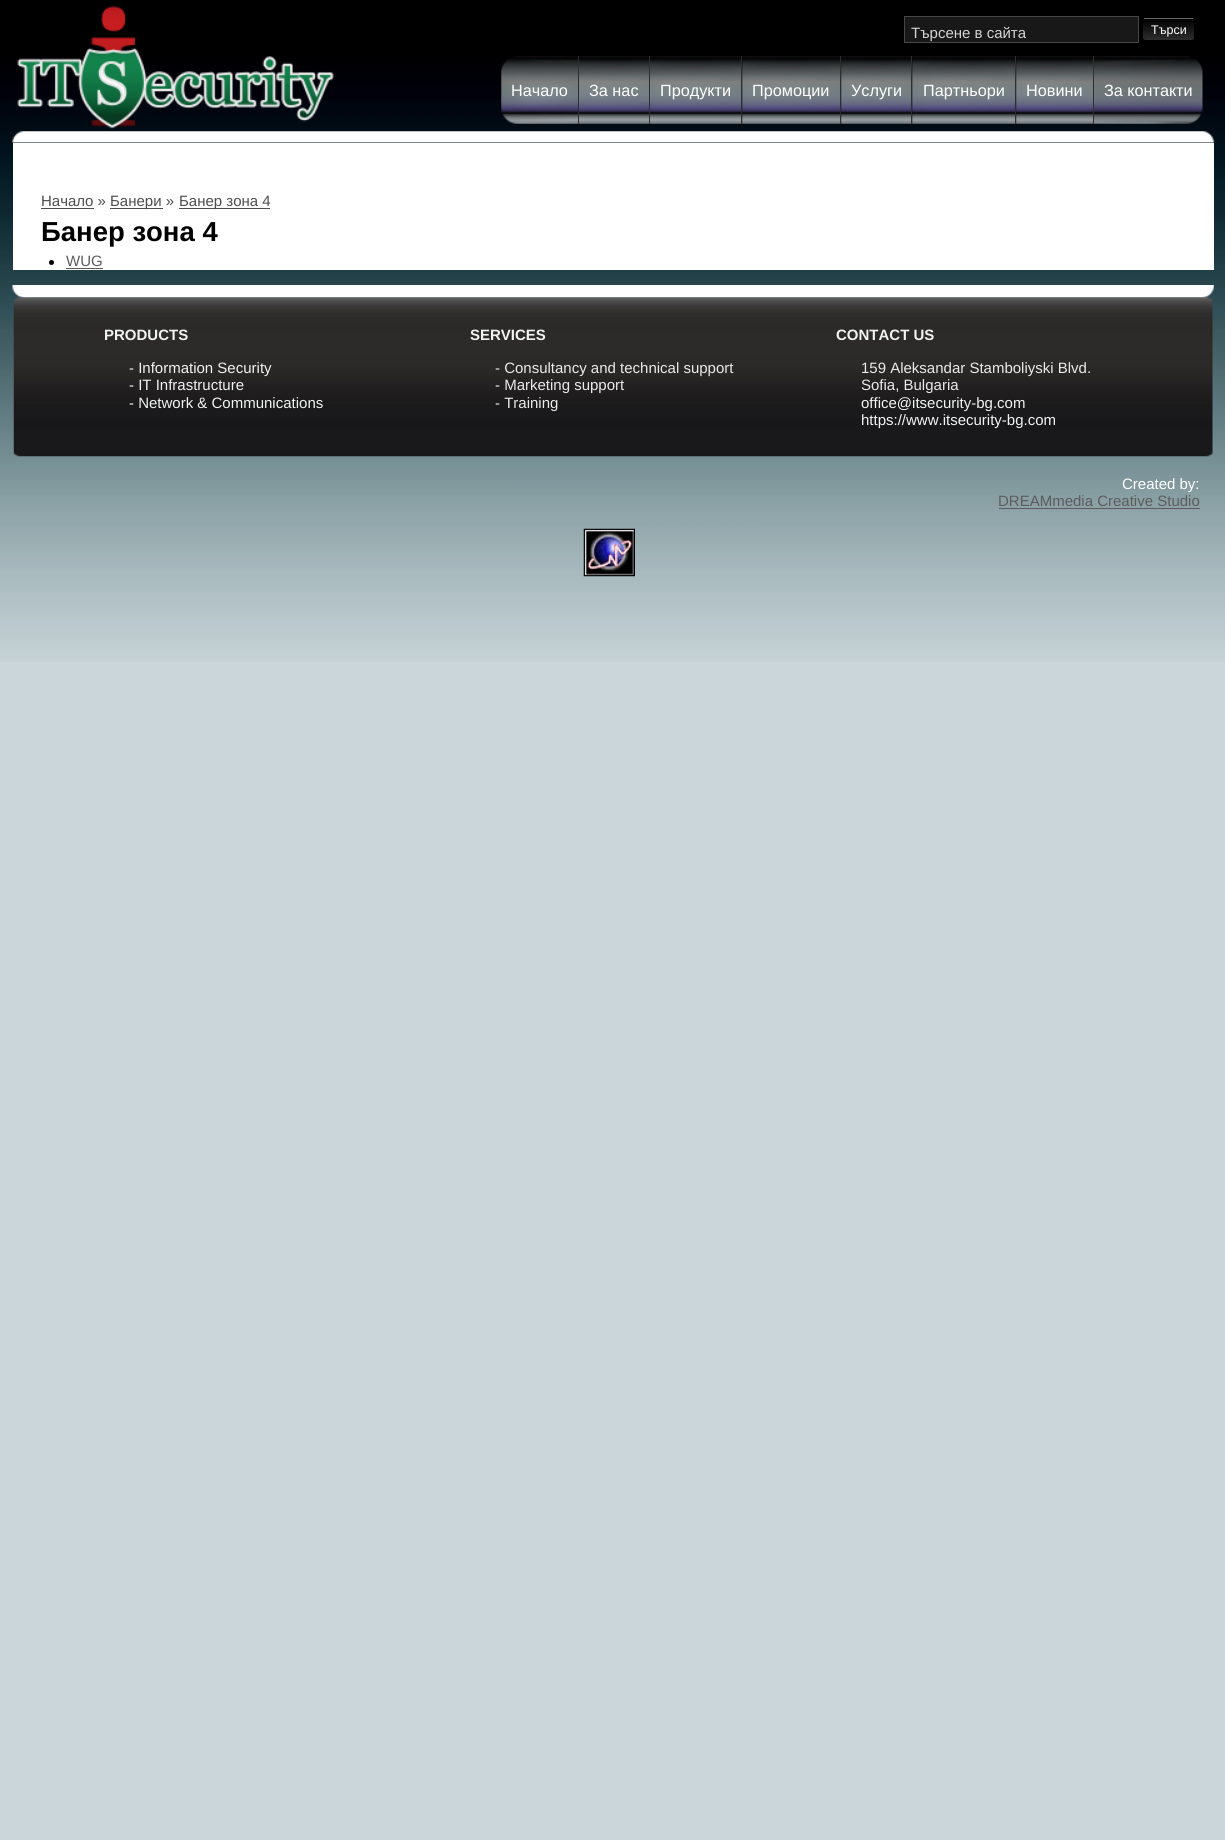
import math
import cairo

surface = cairo.ImageSurface(cairo.FORMAT_RGB24, 1225, 1840)
cr = cairo.Context(surface)
options = cairo.FontOptions()
options.set_hint_metrics(cairo.HINT_METRICS_OFF)
options.set_hint_style(cairo.HINT_STYLE_NONE)
cr.set_font_options(options)
cr.set_miter_limit(4)


def rgb(code):
    cr.set_source_rgb(*(v / 255 for v in bytes.fromhex(code[-6:])))


def rrect(x, y, w, h, r):
    cr.new_sub_path()
    for i, (u, v) in enumerate([(x + w - r, y + h - r), (x + r, y + h - r), (x + r, y + r), (x + w - r, y + r)]):
        cr.arc(u, v, r, i * math.pi / 2, (i + 1) * math.pi / 2)
    cr.close_path()


def image(path, x, y, w, h):
    cr.save()
    cr.set_source_surface(cairo.ImageSurface.create_from_png(path), x, y)
    cr.rectangle(x, y, w, h)
    cr.fill()
    cr.restore()


rgb("#cad6d9")
cr.paint()
image("img/1.png", 0, 0, 1225, 662)
image("img/2.png", 17, 6, 317, 123)
rgb("#181818")
cr.rectangle(904.5, 16.5, 234, 26)
cr.fill_preserve()
rgb("#464646")
cr.set_line_width(1)
cr.stroke()
cr.save()
rrect(1143, 18, 51, 22, 2.5)
cr.clip()
gradient = cairo.LinearGradient(1168, 19, 1168, 40)
gradient.add_color_stop_rgba(0, 0, 0, 0, 1)
gradient.add_color_stop_rgba(1, 0.18, 0.18, 0.18, 1)
cr.set_source(gradient)
cr.new_path()
cr.move_to(1143, 19)
cr.line_to(1194, 19)
cr.line_to(1194, 37.5)
cr.curve_to(1194, 39, 1193, 40, 1191.5, 40)
cr.line_to(1145.5, 40)
cr.curve_to(1144, 40, 1143, 39, 1143, 37.5)
cr.close_path()
cr.fill()
cr.restore()
rgb("#666666")
cr.rectangle(1144, 18, 49, 1)
cr.fill()
image("img/3.png", 501, 56, 77, 68)
rgb("#2d3030")
cr.rectangle(578, 56, 1, 68)
cr.fill()
image("img/4.png", 579, 56, 70, 68)
cr.rectangle(649, 56, 1, 68)
cr.fill()
image("img/9.png", 1016, 56, 77, 68)
image("img/8.png", 912, 56, 105, 68)
image("img/7.png", 841, 56, 72, 68)
image("img/6.png", 742, 56, 100, 68)
image("img/5.png", 650, 56, 93, 68)
for x, y, w, h, color in [
    (741, 56, 1, 68, "#2d3030"),
    (840, 56, 1, 68, "#2d3030"),
    (911, 56, 1, 68, "#2d3030"),
    (1015, 56, 1, 68, "#2d3030"),
    (1093, 56, 1, 68, "#2d3030"),
]:
    rgb(color)
    cr.rectangle(x, y, w, h)
    cr.fill()
image("img/10.png", 1094, 56, 109, 68)
image("img/11.png", 12, 131, 1202, 12)
for x, y, w, h, color in [
    (13, 143, 1201, 127, "#ffffff"),
    (41, 208, 53, 1, "#4e4d4d"),
    (110, 208, 53, 1, "#4e4d4d"),
    (179, 208, 91, 1, "#4e4d4d"),
]:
    rgb(color)
    cr.rectangle(x, y, w, h)
    cr.fill()
rgb("#000000")
cr.arc(51.5, 262.5, 2.5, 0, 2 * math.pi)
cr.fill()
rgb("#5c5c5c")
cr.rectangle(66, 268, 37, 1)
cr.fill()
image("img/12.png", 12, 285, 1202, 13)
image("img/13.png", 13, 297, 1200, 160)
cr.rectangle(999, 508, 201, 1)
cr.fill()
image("img/14.png", 583, 528, 52, 49)
cr.select_font_face("Liberation Sans")
cr.set_font_size(15)
rgb("#d4d4d4")
cr.move_to(911, 38)
cr.show_text("Търсене в сайта")
cr.set_font_size(12.5)
rgb("#ffffff")
cr.move_to(1151, 34)
cr.show_text("Търси")
cr.set_font_size(16.25)
for x, y, s in [
    (511, 96, "Начало"),
    (589, 96, "За нас"),
    (660, 96, "Продукти"),
    (752, 96, "Промоции"),
    (851, 96, "Услуги"),
    (923, 96, "Партньори"),
    (1026, 96, "Новини"),
    (1104, 96, "За контакти"),
]:
    cr.move_to(x, y)
    cr.show_text(s)
cr.set_font_size(15)
rgb("#4e4d4d")
for x, y, s in [
    (41, 206, "Начало »"),
    (110, 206, "Банери »"),
    (179, 206, "Банер зона 4"),
]:
    cr.move_to(x, y)
    cr.show_text(s)
cr.select_font_face("Liberation Sans", cairo.FONT_SLANT_NORMAL, cairo.FONT_WEIGHT_BOLD)
cr.set_font_size(27.5)
rgb("#000000")
cr.move_to(41, 241)
cr.show_text("Банер зона 4")
cr.select_font_face("Liberation Sans")
cr.set_font_size(15)
rgb("#5c5c5c")
cr.move_to(66, 266)
cr.show_text("WUG")
cr.select_font_face("Liberation Sans", cairo.FONT_SLANT_NORMAL, cairo.FONT_WEIGHT_BOLD)
rgb("#f1f2f2")
cr.move_to(104, 340)
cr.show_text("PRODUCTS")
cr.select_font_face("Liberation Sans")
for x, y, s in [
    (129, 373, "- Information Security"),
    (129, 390, "- IT Infrastructure"),
    (129, 408, "- Network & Communications"),
]:
    cr.move_to(x, y)
    cr.show_text(s)
cr.select_font_face("Liberation Sans", cairo.FONT_SLANT_NORMAL, cairo.FONT_WEIGHT_BOLD)
cr.move_to(470, 340)
cr.show_text("SERVICES")
cr.select_font_face("Liberation Sans")
rgb("#eaeaea")
for x, y, s in [
    (495, 373, "- Consultancy and technical support"),
    (495, 390, "- Marketing support"),
    (495, 408, "- Training"),
]:
    cr.move_to(x, y)
    cr.show_text(s)
cr.select_font_face("Liberation Sans", cairo.FONT_SLANT_NORMAL, cairo.FONT_WEIGHT_BOLD)
rgb("#f1f2f2")
cr.move_to(836, 340)
cr.show_text("CONTACT US")
cr.select_font_face("Liberation Sans")
rgb("#eaeaea")
cr.move_to(861, 373)
cr.show_text("159 Aleksandar Stamboliyski Blvd.")
cr.move_to(861, 390)
cr.show_text("Sofia, Bulgaria")
rgb("#f1f2f2")
cr.move_to(861, 408)
cr.show_text("office@itsecurity-bg.com")
cr.move_to(861, 425)
cr.show_text("https://www.itsecurity-bg.com")
rgb("#ffffff")
cr.move_to(1122, 489)
cr.show_text("Created by:")
rgb("#5c5c5c")
cr.move_to(998, 506)
cr.show_text("DREAMmedia Creative Studio")
surface.write_to_png("page.png")
